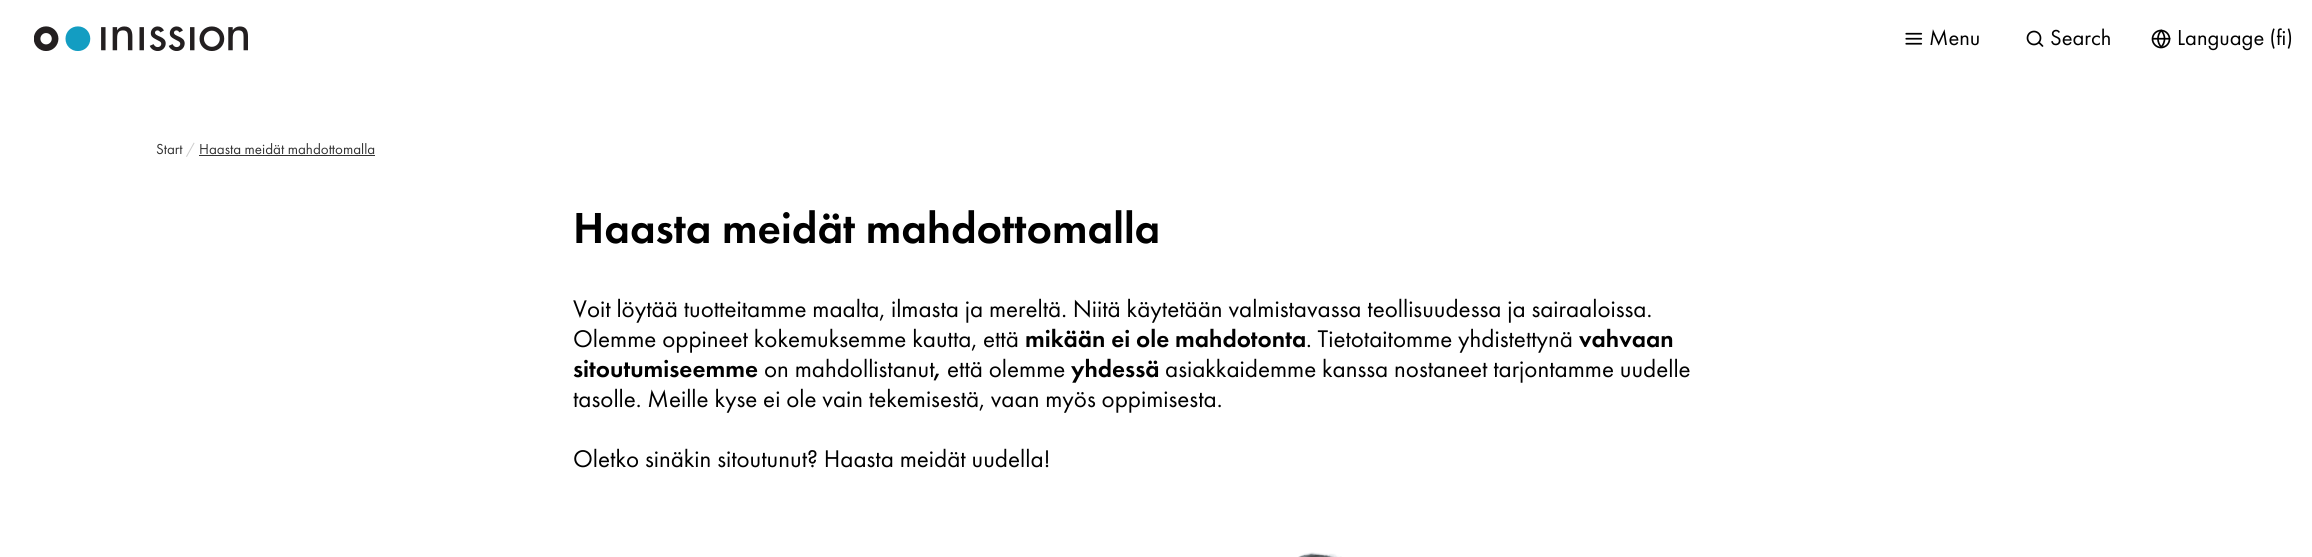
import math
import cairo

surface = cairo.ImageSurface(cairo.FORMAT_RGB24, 2312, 557)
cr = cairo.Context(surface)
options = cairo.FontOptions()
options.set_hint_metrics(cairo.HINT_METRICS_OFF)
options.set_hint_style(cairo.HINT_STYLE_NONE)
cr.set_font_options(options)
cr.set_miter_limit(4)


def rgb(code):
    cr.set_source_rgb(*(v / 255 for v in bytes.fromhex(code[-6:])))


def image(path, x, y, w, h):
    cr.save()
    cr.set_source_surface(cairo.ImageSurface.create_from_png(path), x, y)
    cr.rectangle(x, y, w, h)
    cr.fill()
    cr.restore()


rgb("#ffffff")
cr.paint()
image("img/1.png", 34, 26, 214, 25)
image("img/2.png", 1905, 32, 18, 13)
cr.arc(2034, 38, 6.5, 0, 2 * math.pi)
rgb("#000000")
cr.set_line_width(1.7)
cr.stroke()
cr.new_path()
cr.move_to(2042.5, 46)
cr.line_to(2039, 42.5)
cr.set_line_cap(cairo.LINE_CAP_ROUND)
cr.set_line_join(cairo.LINE_JOIN_ROUND)
cr.stroke()
image("img/3.png", 2151, 29, 20, 20)
rgb("#333333")
cr.rectangle(199, 155, 176, 1)
cr.fill()
image("img/4.png", 1298, 552, 44, 5)
cr.select_font_face("Futura PT")
cr.set_font_size(22.5)
rgb("#000000")
for x, y, s in [
    (1929, 45, "Menu"),
    (2050, 45, "Search"),
    (2177, 45, "Language (fi)"),
]:
    cr.move_to(x, y)
    cr.show_text(s)
cr.set_font_size(15)
rgb("#333333")
cr.move_to(156, 154)
cr.show_text("Start")
rgb("#cccccc")
cr.move_to(186, 154)
cr.show_text("/")
rgb("#333333")
cr.move_to(199, 154)
cr.show_text("Haasta meidät mahdottomalla")
cr.select_font_face("Futura PT Medium")
cr.set_font_size(45)
rgb("#000000")
cr.move_to(573, 243)
cr.show_text("Haasta meidät mahdottomalla")
cr.select_font_face("Futura PT")
cr.set_font_size(25)
cr.move_to(573, 317)
cr.show_text("Voit löytää tuotteitamme maalta, ilmasta ja mereltä. Niitä käytetään valmistavassa teollisuudessa ja sairaaloissa.")
cr.move_to(573, 347)
cr.show_text("Olemme oppineet kokemuksemme kautta, että")
cr.select_font_face("Futura PT Medium")
cr.move_to(1025, 347)
cr.show_text("mikään ei ole mahdotonta")
cr.select_font_face("Futura PT")
cr.move_to(1306, 347)
cr.show_text(". Tietotaitomme yhdistettynä")
cr.select_font_face("Futura PT Medium")
cr.move_to(1579, 347)
cr.show_text("vahvaan")
cr.move_to(573, 377)
cr.show_text("sitoutumiseemme")
cr.select_font_face("Futura PT")
cr.move_to(764, 377)
cr.show_text("on mahdollistanut")
cr.select_font_face("Futura PT Medium")
cr.move_to(934, 377)
cr.show_text(",")
cr.select_font_face("Futura PT")
cr.move_to(947, 377)
cr.show_text("että olemme")
cr.select_font_face("Futura PT Medium")
cr.move_to(1071, 377)
cr.show_text("yhdessä")
cr.select_font_face("Futura PT")
for x, y, s in [
    (1165, 377, "asiakkaidemme kanssa nostaneet tarjontamme uudelle"),
    (573, 407, "tasolle. Meille kyse ei ole vain tekemisestä, vaan myös oppimisesta."),
    (573, 467, "Oletko sinäkin sitoutunut? Haasta meidät uudella!"),
]:
    cr.move_to(x, y)
    cr.show_text(s)
surface.write_to_png("page.png")
